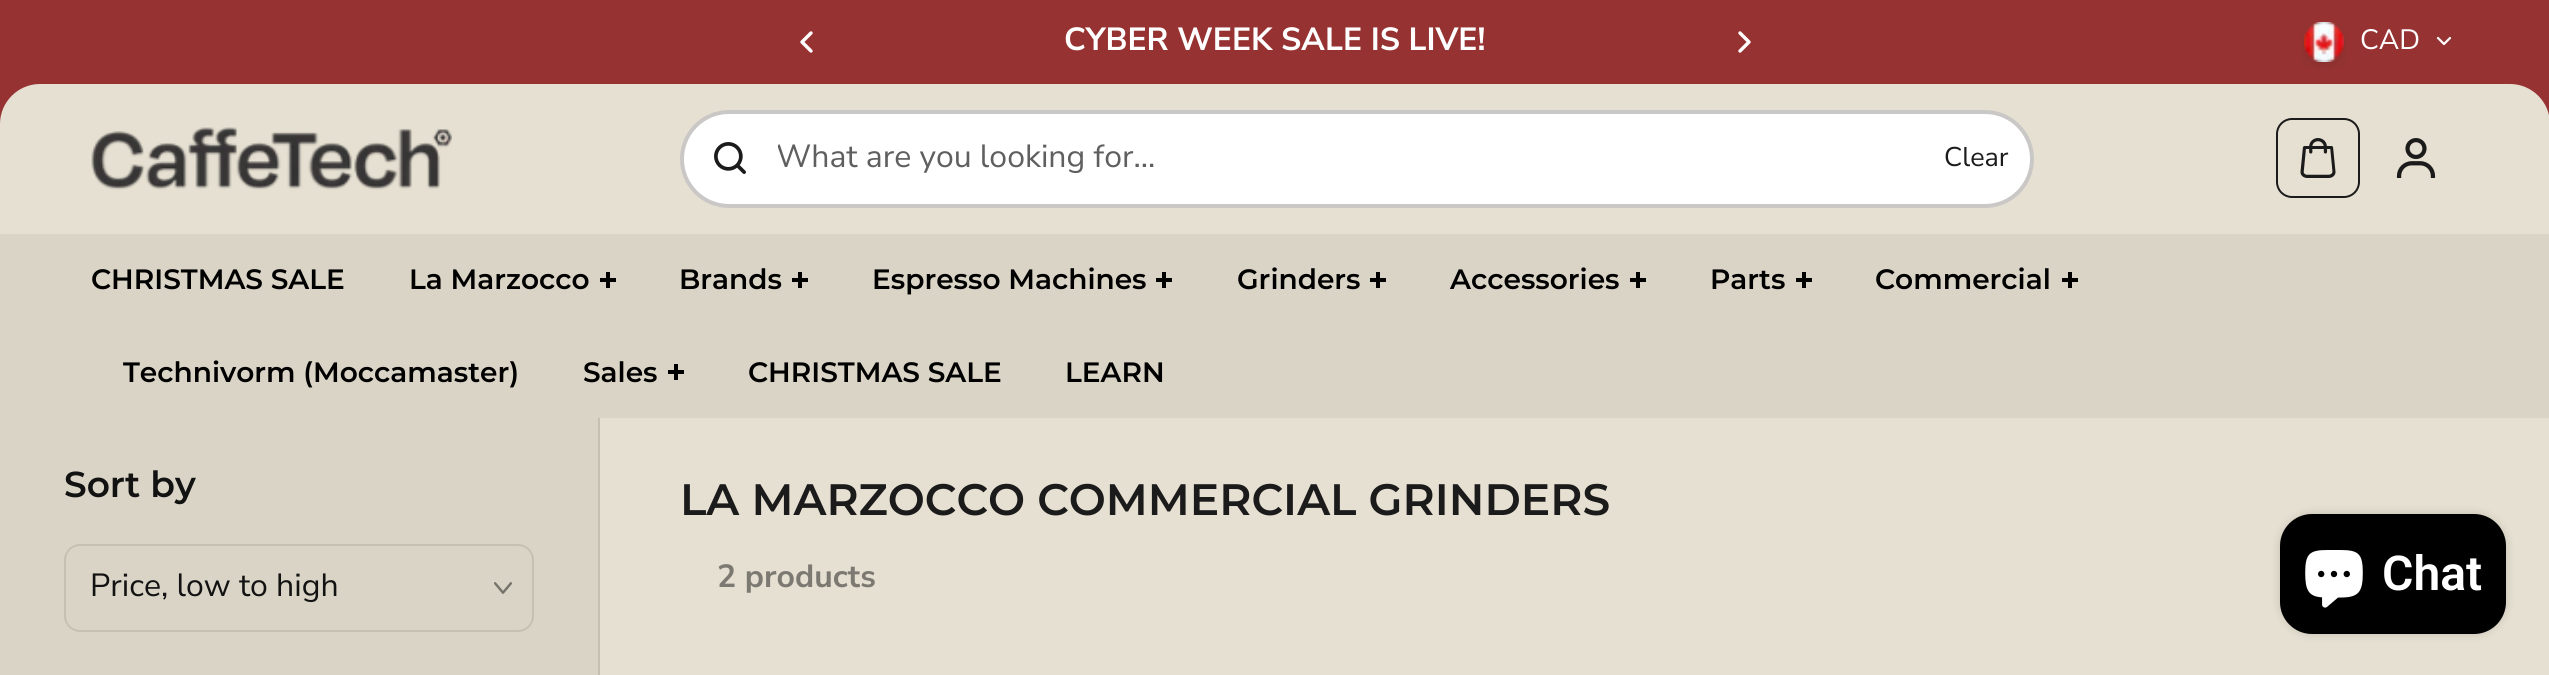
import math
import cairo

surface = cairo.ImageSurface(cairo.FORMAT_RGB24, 2549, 675)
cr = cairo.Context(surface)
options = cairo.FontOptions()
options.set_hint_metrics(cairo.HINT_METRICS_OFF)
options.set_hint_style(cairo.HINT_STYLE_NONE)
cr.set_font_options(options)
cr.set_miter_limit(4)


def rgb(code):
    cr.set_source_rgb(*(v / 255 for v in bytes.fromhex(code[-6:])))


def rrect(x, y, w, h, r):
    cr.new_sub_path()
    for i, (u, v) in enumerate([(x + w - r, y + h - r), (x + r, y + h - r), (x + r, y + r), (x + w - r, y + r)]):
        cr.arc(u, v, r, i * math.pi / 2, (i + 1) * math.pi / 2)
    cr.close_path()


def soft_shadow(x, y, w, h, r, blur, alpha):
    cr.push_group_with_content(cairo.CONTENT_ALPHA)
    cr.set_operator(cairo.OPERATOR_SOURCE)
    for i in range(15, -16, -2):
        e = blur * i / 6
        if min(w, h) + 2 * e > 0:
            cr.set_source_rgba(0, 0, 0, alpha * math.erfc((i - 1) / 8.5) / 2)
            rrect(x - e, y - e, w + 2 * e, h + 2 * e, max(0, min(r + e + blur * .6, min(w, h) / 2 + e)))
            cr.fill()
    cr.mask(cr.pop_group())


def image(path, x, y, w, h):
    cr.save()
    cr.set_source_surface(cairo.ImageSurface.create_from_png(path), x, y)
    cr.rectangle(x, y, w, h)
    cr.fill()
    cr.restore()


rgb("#e6e0d2")
cr.paint()
rgb("#963332")
cr.rectangle(0, 0, 2549, 124)
cr.fill()
cr.new_path()
cr.move_to(811, 33)
cr.line_to(802, 42)
cr.line_to(811, 51)
rgb("#ffffff")
cr.set_line_width(3.4)
cr.set_line_cap(cairo.LINE_CAP_ROUND)
cr.set_line_join(cairo.LINE_JOIN_ROUND)
cr.stroke()
cr.new_path()
cr.move_to(1740, 33)
cr.line_to(1749, 42)
cr.line_to(1740, 51)
cr.stroke()
image("img/1.png", 2301, 22, 46, 47)
cr.new_path()
cr.move_to(2450, 38)
cr.line_to(2444, 44)
cr.line_to(2438, 38)
cr.set_line_width(2.2)
cr.stroke()
rgb("#e6e0d2")
cr.new_path()
cr.move_to(40, 84)
cr.line_to(2510, 84)
cr.curve_to(2532, 84, 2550, 102, 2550, 124)
cr.line_to(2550, 234)
cr.line_to(0, 234)
cr.line_to(0, 124)
cr.curve_to(0, 102, 18, 84, 40, 84)
cr.close_path()
cr.fill()
image("img/2.png", 91, 127, 361, 63)
rgb("#ffffff")
rrect(682, 112, 1350, 94, 47)
cr.fill_preserve()
rgb("#cac8c6")
cr.set_line_width(4)
cr.set_line_cap(cairo.LINE_CAP_BUTT)
cr.set_line_join(cairo.LINE_JOIN_MITER)
cr.stroke()
image("img/3.png", 714, 142, 32, 32)
rrect(2277, 119, 82, 78, 15)
rgb("#1c1b1b")
cr.set_line_width(2)
cr.stroke()
image("img/4.png", 2300, 138, 36, 40)
image("img/5.png", 2396, 138, 40, 40)
for x, y, w, h, color in [
    (0, 234, 2549, 184, "#dad4c6"),
    (600, 278, 16, 4, "#000000"),
    (606, 272, 4, 16, "#000000"),
    (792, 278, 16, 4, "#000000"),
    (798, 272, 4, 16, "#000000"),
    (1156, 278, 16, 4, "#000000"),
    (1162, 272, 4, 16, "#000000"),
    (1370, 278, 16, 4, "#000000"),
    (1376, 272, 4, 16, "#000000"),
    (1630, 278, 16, 4, "#000000"),
    (1636, 272, 4, 16, "#000000"),
    (1796, 278, 16, 4, "#000000"),
    (1802, 272, 4, 16, "#000000"),
    (2062, 278, 16, 4, "#000000"),
    (2068, 272, 4, 16, "#000000"),
    (668, 370, 16, 4, "#000000"),
    (674, 364, 4, 16, "#000000"),
    (0, 418, 598, 257, "#dad4c6"),
    (598, 418, 2, 257, "#c6c0b3"),
]:
    rgb(color)
    cr.rectangle(x, y, w, h)
    cr.fill()
rrect(65, 545, 468, 86, 15)
cr.stroke()
image("img/6.png", 494, 582, 18, 12)
rgb("#000000")
soft_shadow(2280, 514, 226, 120, 32, 5, 0.15)
rgb("#000000")
rrect(2280, 514, 226, 120, 32)
cr.fill()
image("img/7.png", 2305, 550, 58, 58)
cr.select_font_face("Nunito Sans", cairo.FONT_SLANT_NORMAL, cairo.FONT_WEIGHT_BOLD)
cr.set_font_size(32)
rgb("#ffffff")
cr.move_to(1064, 50)
cr.show_text("CYBER WEEK SALE IS LIVE!")
cr.select_font_face("Nunito Sans")
cr.set_font_size(28)
cr.move_to(2360, 49)
cr.show_text("CAD")
cr.save()
rrect(776, 114, 1138, 90, 45)
cr.clip()
cr.set_font_size(32)
rgb("#605f5f")
cr.move_to(776, 167)
cr.show_text("What are you looking for...")
cr.restore()
cr.set_font_size(27)
rgb("#1c1b1b")
cr.move_to(1944, 166)
cr.show_text("Clear")
cr.select_font_face("Montserrat SemiBold")
cr.set_font_size(28)
rgb("#000000")
for x, y, s in [
    (91, 289, "CHRISTMAS SALE"),
    (409, 289, "La Marzocco"),
    (679, 289, "Brands"),
    (872, 289, "Espresso Machines"),
    (1237, 289, "Grinders"),
    (1450, 289, "Accessories"),
    (1710, 289, "Parts"),
    (1875, 289, "Commercial"),
    (123, 382, "Technivorm (Moccamaster)"),
    (583, 382, "Sales"),
    (748, 382, "CHRISTMAS SALE"),
    (1065, 382, "LEARN"),
]:
    cr.move_to(x, y)
    cr.show_text(s)
cr.set_font_size(36)
rgb("#121212")
cr.move_to(64, 497)
cr.show_text("Sort by")
cr.select_font_face("Nunito Sans")
cr.set_font_size(32)
cr.move_to(90, 596)
cr.show_text("Price, low to high")
cr.select_font_face("Montserrat SemiBold")
cr.set_font_size(44)
rgb("#1c1b1b")
cr.move_to(680, 515)
cr.show_text("LA MARZOCCO COMMERCIAL GRINDERS")
cr.select_font_face("Nunito Sans", cairo.FONT_SLANT_NORMAL, cairo.FONT_WEIGHT_BOLD)
cr.set_font_size(32)
rgb("#7c7972")
cr.move_to(717, 587)
cr.show_text("2 products")
cr.select_font_face("Roboto SemiBold")
cr.set_font_size(48)
rgb("#ffffff")
cr.move_to(2382, 590)
cr.show_text("Chat")
surface.write_to_png("page.png")
